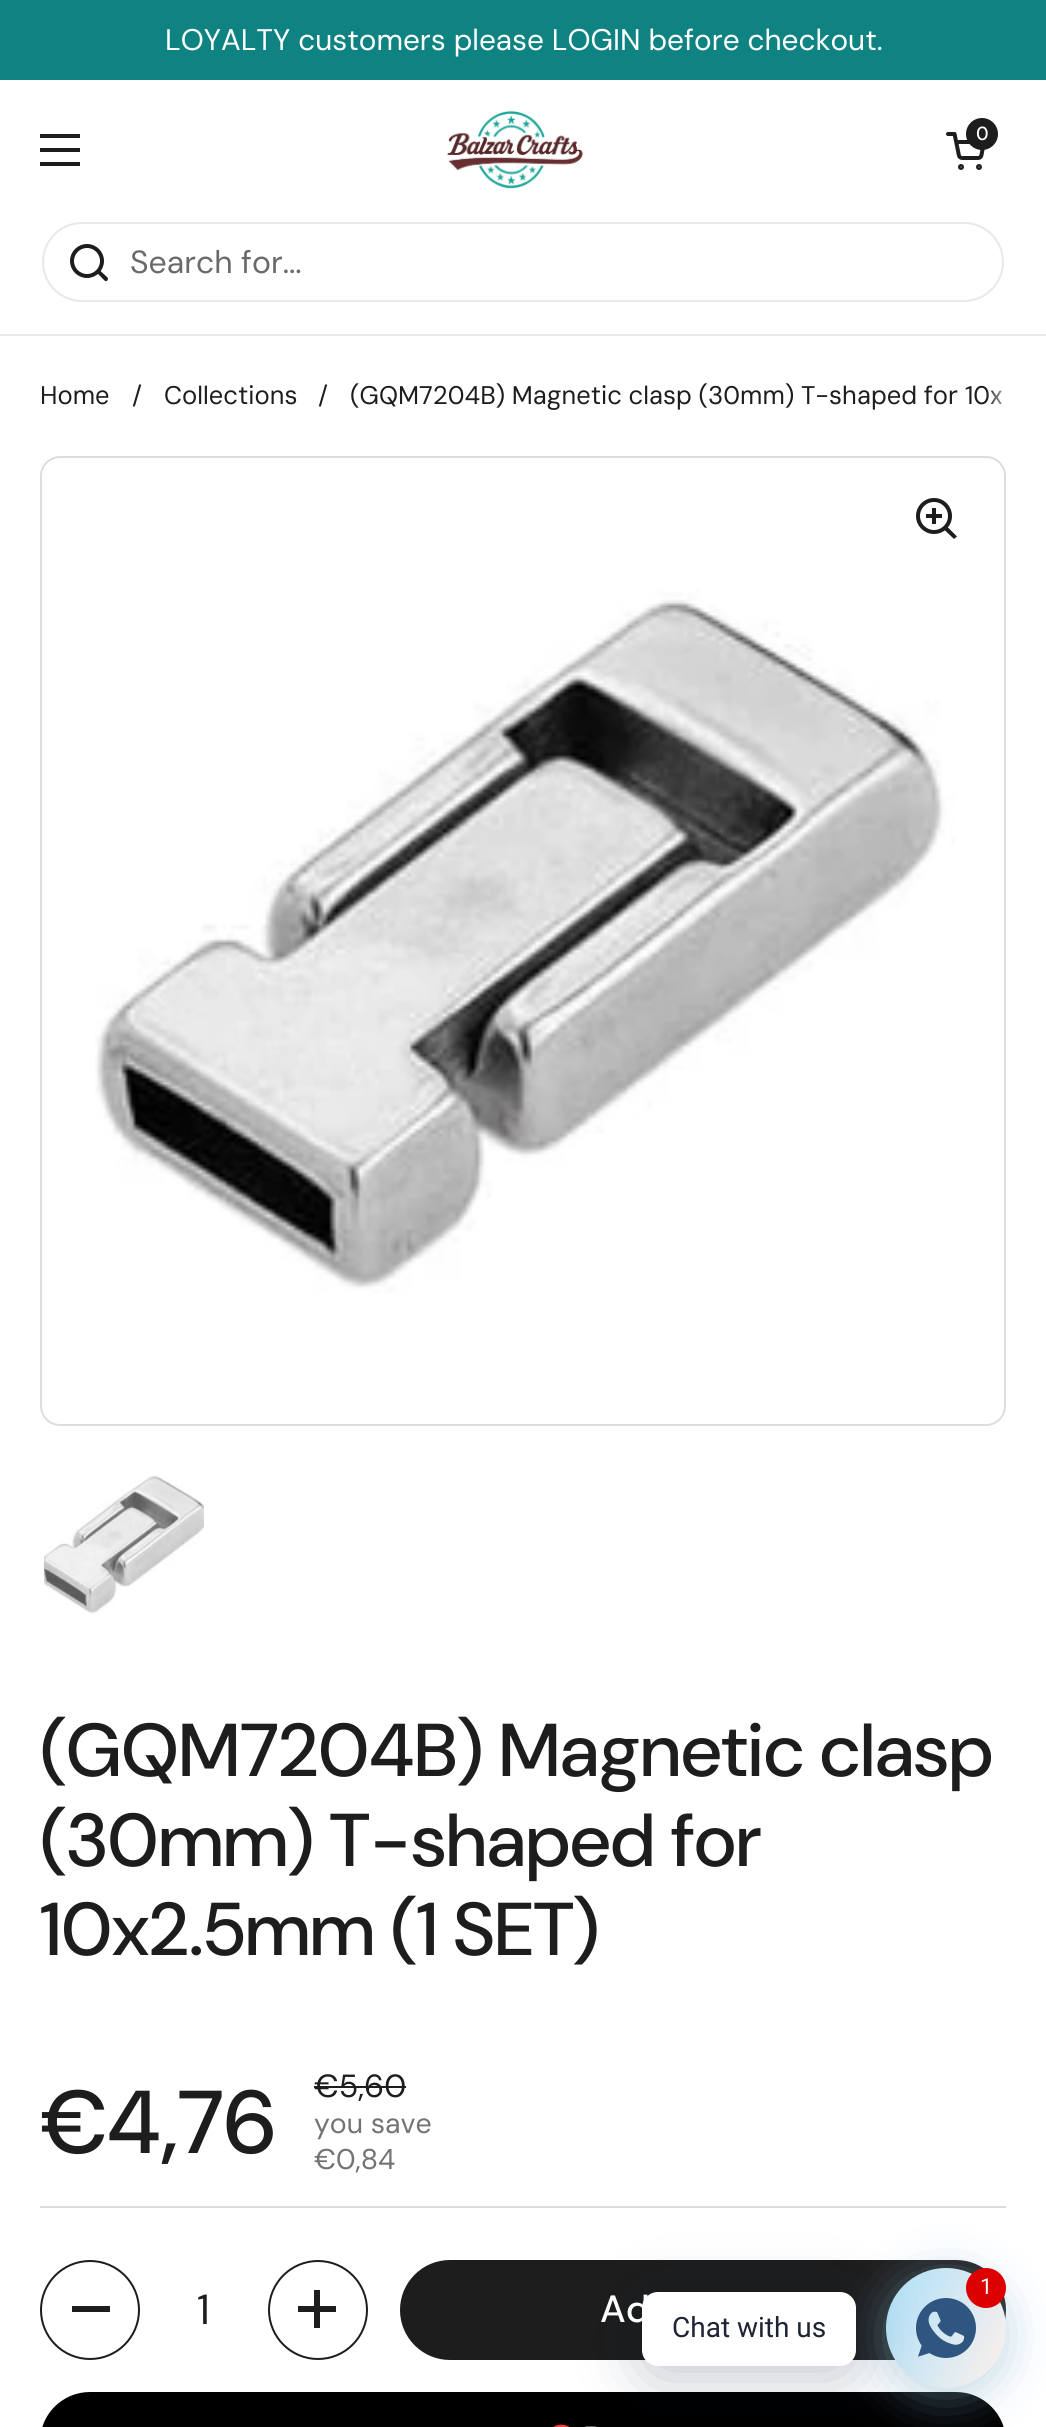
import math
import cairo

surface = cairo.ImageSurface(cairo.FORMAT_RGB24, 1046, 2427)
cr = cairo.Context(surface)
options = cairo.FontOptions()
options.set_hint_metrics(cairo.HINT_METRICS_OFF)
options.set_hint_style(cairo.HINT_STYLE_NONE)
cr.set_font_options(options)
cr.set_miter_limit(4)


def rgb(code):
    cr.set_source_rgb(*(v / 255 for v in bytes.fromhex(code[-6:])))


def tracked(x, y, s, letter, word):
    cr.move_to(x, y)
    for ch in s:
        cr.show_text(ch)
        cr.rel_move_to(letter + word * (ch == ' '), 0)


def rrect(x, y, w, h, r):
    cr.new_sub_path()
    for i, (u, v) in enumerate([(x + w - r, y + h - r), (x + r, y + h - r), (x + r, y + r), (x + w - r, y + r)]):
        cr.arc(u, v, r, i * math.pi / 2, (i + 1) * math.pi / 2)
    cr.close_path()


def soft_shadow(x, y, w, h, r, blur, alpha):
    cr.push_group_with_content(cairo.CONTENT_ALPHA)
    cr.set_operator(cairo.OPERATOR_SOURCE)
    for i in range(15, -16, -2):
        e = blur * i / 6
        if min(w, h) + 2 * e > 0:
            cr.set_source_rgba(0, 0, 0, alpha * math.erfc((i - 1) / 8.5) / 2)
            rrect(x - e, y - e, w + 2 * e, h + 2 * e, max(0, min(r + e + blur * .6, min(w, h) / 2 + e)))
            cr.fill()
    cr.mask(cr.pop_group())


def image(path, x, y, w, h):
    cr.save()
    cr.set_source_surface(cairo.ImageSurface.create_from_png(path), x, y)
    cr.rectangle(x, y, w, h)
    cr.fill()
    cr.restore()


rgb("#ffffff")
cr.paint()
for x, y, w, h, color in [
    (0, 0, 1046, 80, "#0f8282"),
    (40, 134, 40, 4, "#1d1d1d"),
    (40, 148, 40, 4, "#1d1d1d"),
    (40, 162, 40, 4, "#1d1d1d"),
]:
    rgb(color)
    cr.rectangle(x, y, w, h)
    cr.fill()
image("img/1.png", 447, 111, 136, 78)
image("img/2.png", 946, 132, 39, 38)
cr.arc(982, 134, 16, 0, 2 * math.pi)
cr.fill()
rgb("#e8e8e8")
cr.rectangle(0, 334, 1046, 2)
cr.fill()
rrect(43, 223, 960, 78, 39)
cr.stroke()
cr.arc(87, 261, 15, 0, 2 * math.pi)
rgb("#1d1d1d")
cr.set_line_width(4)
cr.stroke()
cr.new_path()
cr.move_to(100, 270.5)
cr.line_to(99, 269)
cr.line_to(96, 272)
cr.line_to(97.5, 273.5)
cr.close_path()
cr.move_to(104.5, 280.5)
cr.curve_to(106.5, 282.5, 109, 279.5, 107.5, 277.5)
cr.close_path()
cr.move_to(97.5, 273.5)
cr.line_to(104.5, 280.5)
cr.line_to(107.5, 277.5)
cr.line_to(100, 270.5)
cr.close_path()
cr.fill()
rrect(41, 457, 964, 968, 19)
rgb("#dddddd")
cr.set_line_width(2)
cr.stroke()
cr.arc(934, 516, 16, 0, 2 * math.pi)
rgb("#1d1d1d")
cr.set_line_width(4)
cr.stroke()
cr.rectangle(932, 508, 4, 16)
cr.fill()
cr.rectangle(926, 514, 16, 4)
cr.fill()
cr.new_path()
cr.move_to(944.5, 530)
cr.line_to(947.5, 527)
cr.line_to(957, 536.5)
cr.line_to(954, 539)
cr.close_path()
cr.fill()
image("img/3.png", 95, 589, 860, 704)
image("img/4.png", 44, 1475, 160, 139)
cr.rectangle(314, 2086, 92, 2)
cr.fill()
rgb("#dddddd")
cr.rectangle(40, 2206, 966, 2)
cr.fill()
cr.arc(90, 2310, 49, 0, 2 * math.pi)
rgb("#1d1d1d")
cr.set_line_width(2)
cr.stroke()
cr.rectangle(72, 2306, 38, 6)
cr.fill()
cr.arc(318, 2310, 49, 0, 2 * math.pi)
cr.stroke()
cr.rectangle(314, 2290, 6, 38)
cr.fill()
cr.rectangle(298, 2306, 38, 6)
cr.fill()
rrect(401, 2261, 604, 98, 49)
cr.fill_preserve()
cr.stroke()
rgb("#000000")
rrect(40, 2392, 966, 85, 50)
cr.fill()
image("img/5.png", 553, 2424, 44, 3)
rgb("#82b2c9")
soft_shadow(886, 2276, 120, 120, 60, 24, 0.5)
gradient = cairo.LinearGradient(874, 2294, 1018, 2362)
gradient.add_color_stop_rgba(0, 0.675, 0.878, 0.976, 1)
gradient.add_color_stop_rgba(1, 1, 0.945, 0.922, 1)
cr.set_source(gradient)
cr.arc(946, 2328, 60, 0, 2 * math.pi)
cr.fill()
rgb("#00122e")
soft_shadow(642, 2304, 214, 74, 16, 32, 0.24)
image("img/6.png", 916, 2298, 60, 60)
rgb("#dd0000")
cr.arc(986, 2288, 20, 0, 2 * math.pi)
cr.fill()
rgb("#ffffff")
rrect(642, 2292, 214, 74, 16)
cr.fill()
cr.select_font_face("DM Sans")
cr.set_font_size(29.75)
cr.move_to(165, 50)
cr.show_text("LOYALTY customers please LOGIN before checkout.")
cr.select_font_face("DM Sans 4 Medium")
cr.set_font_size(19)
cr.move_to(976, 140)
cr.show_text("0")
cr.select_font_face("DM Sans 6")
cr.set_font_size(32)
rgb("#6a6a6a")
cr.move_to(130, 273)
cr.show_text("Search for...")
cr.select_font_face("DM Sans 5")
cr.set_font_size(25.5)
rgb("#1d1d1d")
for x, y, s in [
    (40, 404, "Home"),
    (132, 404, "/"),
    (164, 404, "Collections"),
    (318, 404, "/"),
]:
    cr.move_to(x, y)
    cr.show_text(s)
tracked(350, 404, "(GQM7204B) Magnetic clasp (30mm) T-shaped for 10x", 0, -0.25)
gradient = cairo.LinearGradient(1046, 396, 986, 396)
gradient.add_color_stop_rgba(0.5, 1, 1, 1, 1)
gradient.add_color_stop_rgba(1, 1, 1, 1, 0)
cr.set_source(gradient)
cr.rectangle(987, 388, 16, 16)
cr.fill()
cr.select_font_face("DM Sans Medium")
cr.set_font_size(74.7)
rgb("#1d1d1d")
for x, y, s in [
    (40, 1776, "(GQM7204B) Magnetic clasp"),
    (40, 1866, "(30mm) T-shaped for"),
    (40, 1955, "10x2.5mm (1 SET)"),
]:
    cr.move_to(x, y)
    cr.show_text(s)
cr.select_font_face("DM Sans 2 Medium")
cr.set_font_size(89)
cr.move_to(40, 2153)
cr.show_text("€4,76")
cr.select_font_face("DM Sans 2")
cr.set_font_size(32)
cr.move_to(314, 2097)
cr.show_text("€5,60")
cr.select_font_face("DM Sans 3")
cr.set_font_size(28.5)
rgb("#737373")
cr.move_to(314, 2133)
cr.show_text("you save")
cr.move_to(314, 2169)
cr.show_text("€0,84")
cr.select_font_face("DM Sans 4")
cr.set_font_size(42)
rgb("#1d1d1d")
cr.move_to(197, 2324)
cr.show_text("1")
cr.select_font_face("DM Sans 3 Medium")
cr.set_font_size(38)
rgb("#ffffff")
cr.move_to(600, 2322)
cr.show_text("Ad")
cr.select_font_face("Roboto")
cr.set_font_size(22)
cr.move_to(980, 2294)
cr.show_text("1")
cr.set_font_size(28)
rgb("#1e2433")
cr.move_to(672, 2337)
cr.show_text("Chat with us")
surface.write_to_png("page.png")
